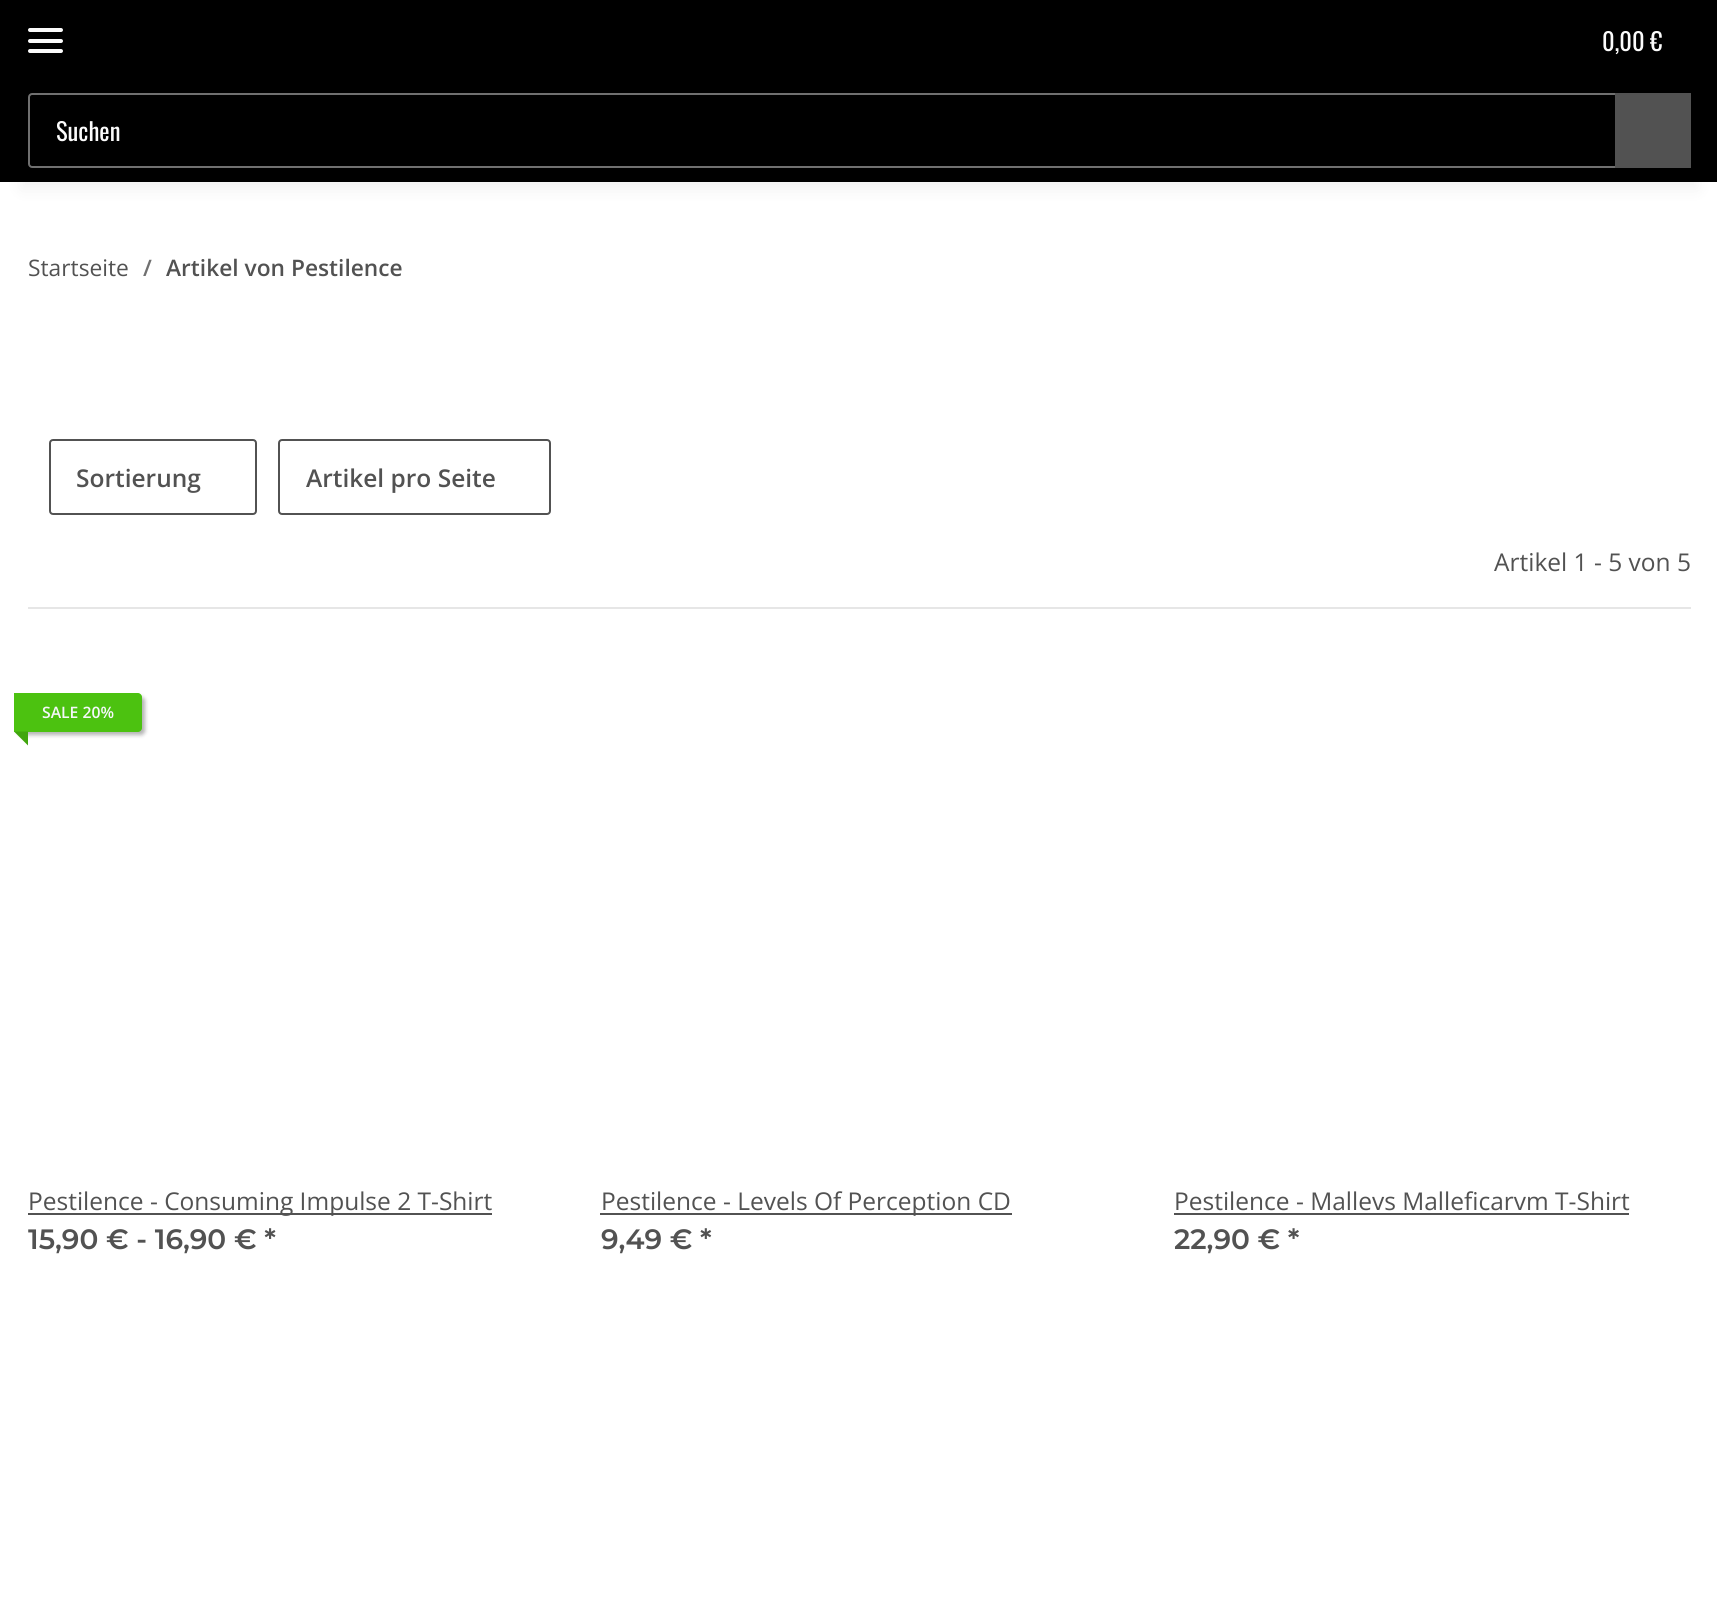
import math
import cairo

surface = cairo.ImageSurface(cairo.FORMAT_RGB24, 1717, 1608)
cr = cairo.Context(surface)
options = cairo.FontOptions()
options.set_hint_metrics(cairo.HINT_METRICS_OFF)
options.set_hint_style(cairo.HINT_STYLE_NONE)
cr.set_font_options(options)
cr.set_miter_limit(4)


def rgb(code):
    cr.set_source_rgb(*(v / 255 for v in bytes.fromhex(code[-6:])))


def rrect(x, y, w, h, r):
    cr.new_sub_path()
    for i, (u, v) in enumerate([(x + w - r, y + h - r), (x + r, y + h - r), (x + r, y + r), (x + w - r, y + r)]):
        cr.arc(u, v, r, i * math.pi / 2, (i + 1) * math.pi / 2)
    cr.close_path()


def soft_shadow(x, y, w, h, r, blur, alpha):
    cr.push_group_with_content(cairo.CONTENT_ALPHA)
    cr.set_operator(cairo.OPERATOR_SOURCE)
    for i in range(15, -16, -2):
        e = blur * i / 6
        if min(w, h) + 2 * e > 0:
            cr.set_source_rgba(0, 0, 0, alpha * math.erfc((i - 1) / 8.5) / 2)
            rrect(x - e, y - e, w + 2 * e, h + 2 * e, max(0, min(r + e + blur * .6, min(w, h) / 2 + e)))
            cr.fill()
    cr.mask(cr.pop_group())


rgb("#ffffff")
cr.paint()
rgb("#000000")
soft_shadow(21, 49, 1677, 140, 0, 8, 0.06)
rgb("#000000")
cr.rectangle(0, 0, 1717, 182)
cr.fill()
rgb("#fbfbfb")
rrect(28, 39, 35, 4, 2)
cr.fill()
rrect(28, 28, 35, 4, 2)
cr.fill()
rrect(28, 49, 35, 4, 2)
cr.fill()
cr.new_path()
cr.move_to(32, 94)
cr.line_to(1616, 94)
cr.line_to(1616, 167)
cr.line_to(32, 167)
cr.curve_to(30.5, 167, 29, 165.5, 29, 164)
cr.line_to(29, 97)
cr.curve_to(29, 95.5, 30.5, 94, 32, 94)
cr.close_path()
rgb("#707070")
cr.stroke()
rgb("#525252")
cr.rectangle(1615, 93, 76, 75)
cr.fill()
rrect(50, 440, 206, 74, 3)
cr.stroke()
rrect(279, 440, 271, 74, 3)
cr.stroke()
rgb("#e6e6e6")
cr.rectangle(28, 607, 1663, 2)
cr.fill()
rgb("#000000")
soft_shadow(18, 697, 127, 38, 4, 2, 0.3)
rgb("#4cc210")
cr.new_path()
cr.move_to(14, 693)
cr.line_to(138, 693)
cr.curve_to(140, 693, 142, 695, 142, 697)
cr.line_to(142, 728)
cr.curve_to(142, 730, 140, 732, 138, 732)
cr.line_to(14, 732)
cr.close_path()
cr.fill()
rgb("#41a60e")
cr.new_path()
cr.move_to(28, 731.5)
cr.line_to(28, 745.5)
cr.line_to(14, 731.5)
cr.close_path()
cr.fill()
for x, y, w, h, color in [
    (28, 1213, 464, 2, "#525252"),
    (600, 1213, 412, 2, "#525252"),
    (1174, 1213, 455, 2, "#525252"),
]:
    rgb(color)
    cr.rectangle(x, y, w, h)
    cr.fill()
cr.select_font_face("Oswald")
cr.set_font_size(24.5)
rgb("#fbfbfb")
cr.move_to(1602, 51)
cr.show_text("0,00 €")
cr.move_to(56, 141)
cr.show_text("Suchen")
cr.select_font_face("Open Sans")
cr.set_font_size(22.75)
rgb("#525252")
cr.move_to(28, 276)
cr.show_text("Startseite")
cr.select_font_face("Open Sans SemiBold")
rgb("#707070")
cr.move_to(143, 276)
cr.show_text("/")
rgb("#525252")
cr.move_to(166, 276)
cr.show_text("Artikel von Pestilence")
cr.set_font_size(24.5)
cr.move_to(76, 487)
cr.show_text("Sortierung")
cr.move_to(306, 487)
cr.show_text("Artikel pro Seite")
cr.select_font_face("Open Sans")
cr.move_to(1494, 571)
cr.show_text("Artikel 1 - 5 von 5")
cr.select_font_face("Open Sans SemiBold")
cr.set_font_size(15.75)
rgb("#f5f7fa")
cr.move_to(42, 718)
cr.show_text("SALE 20%")
cr.select_font_face("Open Sans")
cr.set_font_size(24.5)
rgb("#525252")
cr.move_to(28, 1210)
cr.show_text("Pestilence - Consuming Impulse 2 T-Shirt")
cr.select_font_face("Montserrat SemiBold")
cr.set_font_size(28)
cr.move_to(28, 1249)
cr.show_text("15,90 € - 16,90 € *")
cr.select_font_face("Open Sans")
cr.set_font_size(24.5)
cr.move_to(601, 1210)
cr.show_text("Pestilence - Levels Of Perception CD")
cr.select_font_face("Montserrat SemiBold")
cr.set_font_size(28)
cr.move_to(601, 1249)
cr.show_text("9,49 € *")
cr.select_font_face("Open Sans")
cr.set_font_size(24.5)
cr.move_to(1174, 1210)
cr.show_text("Pestilence - Mallevs Malleficarvm T-Shirt")
cr.select_font_face("Montserrat SemiBold")
cr.set_font_size(28)
cr.move_to(1174, 1249)
cr.show_text("22,90 € *")
surface.write_to_png("page.png")
